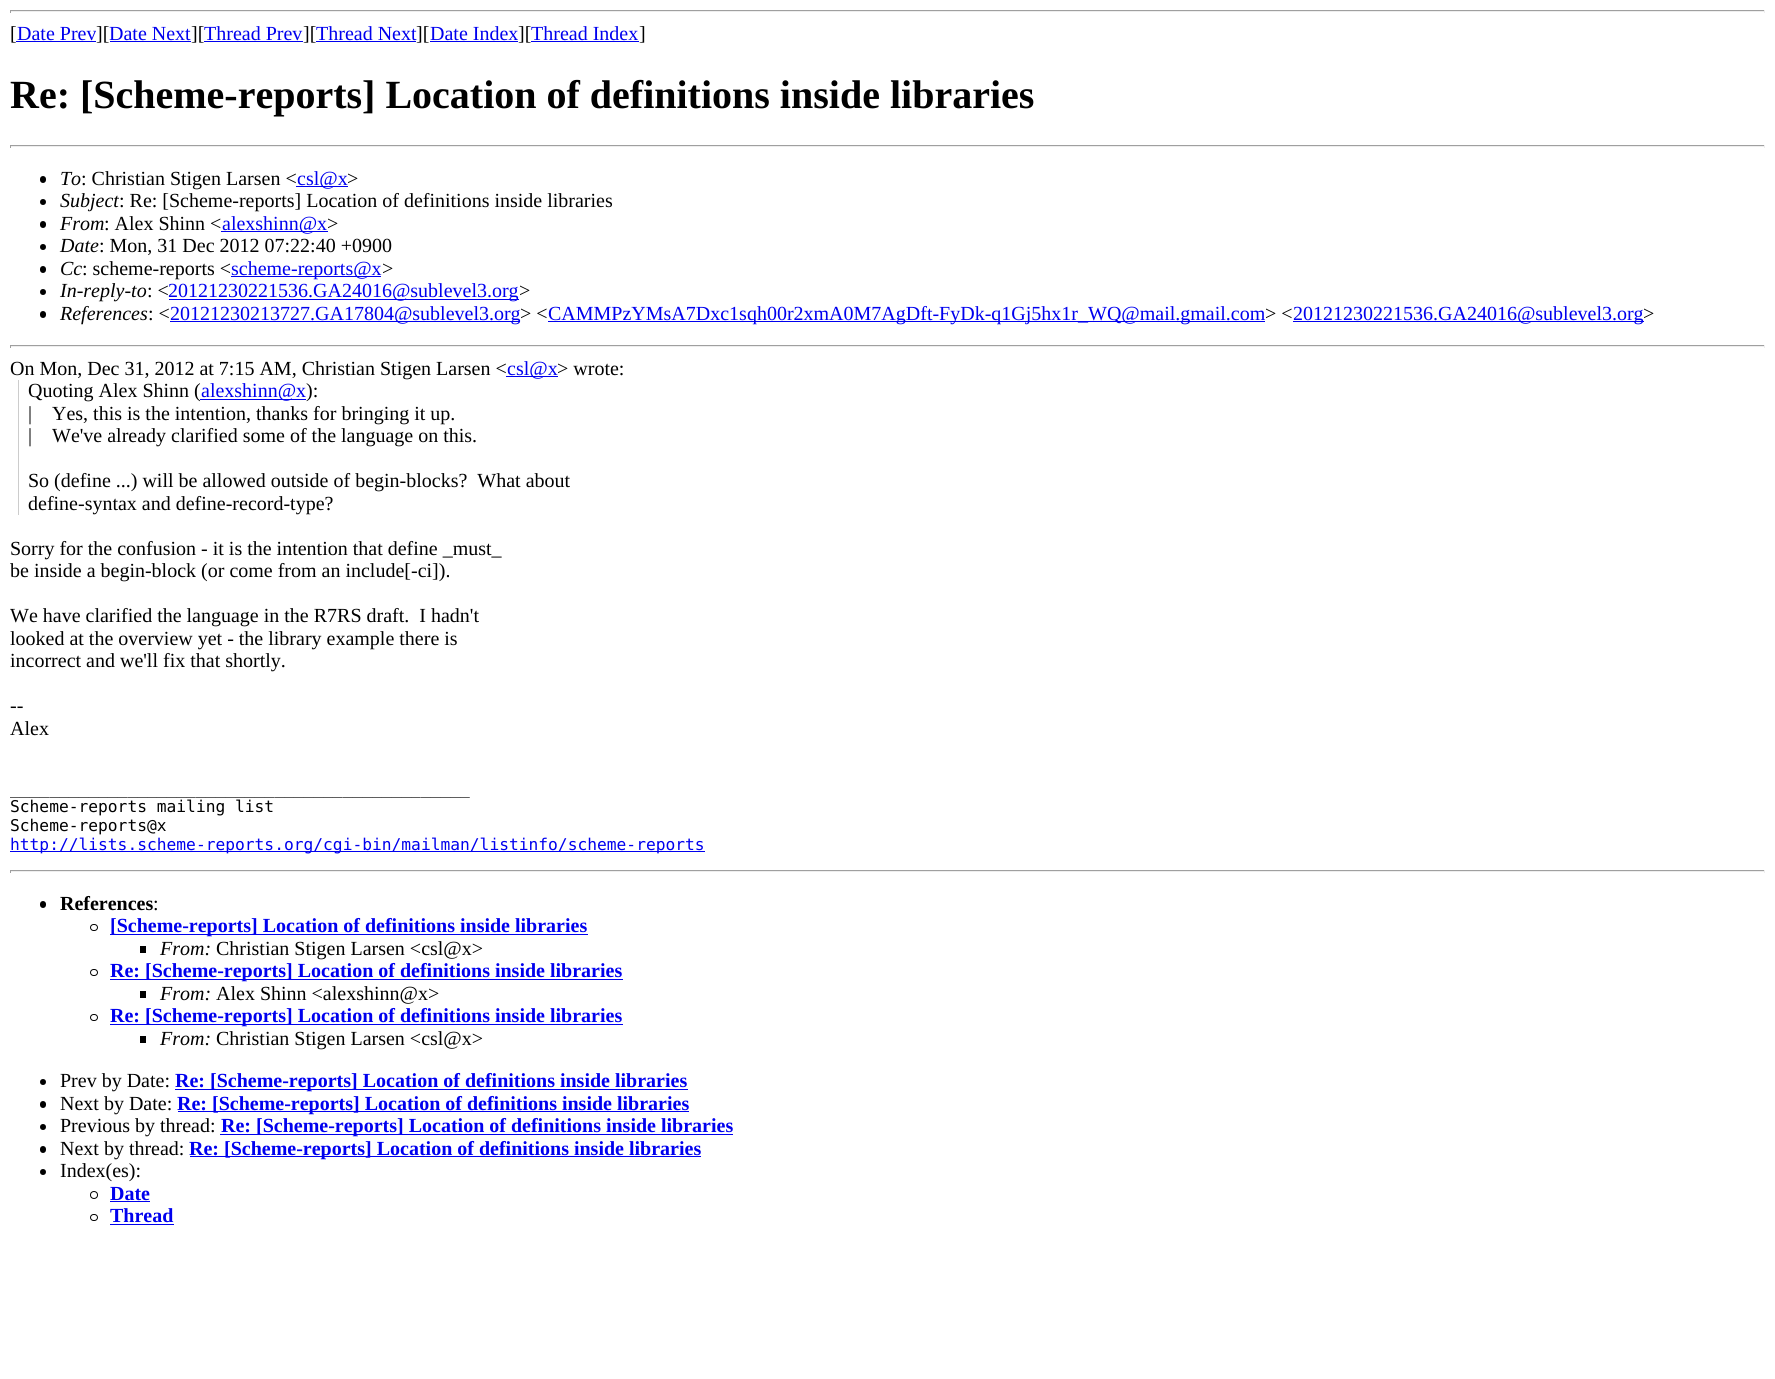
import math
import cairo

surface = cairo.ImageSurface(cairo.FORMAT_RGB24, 1775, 1379)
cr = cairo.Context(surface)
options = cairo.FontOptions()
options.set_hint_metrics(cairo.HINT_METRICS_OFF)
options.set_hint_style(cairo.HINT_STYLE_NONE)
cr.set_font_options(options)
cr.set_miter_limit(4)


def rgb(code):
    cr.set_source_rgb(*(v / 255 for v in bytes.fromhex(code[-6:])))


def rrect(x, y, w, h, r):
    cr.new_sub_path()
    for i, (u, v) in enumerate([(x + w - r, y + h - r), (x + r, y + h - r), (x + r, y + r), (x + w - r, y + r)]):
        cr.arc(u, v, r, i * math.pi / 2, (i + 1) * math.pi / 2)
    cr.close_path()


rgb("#ffffff")
cr.paint()
for x, y, w, h, color in [
    (10, 10, 1755, 1, "#9f9f9f"),
    (1764, 10, 1, 3, "#eeeeee"),
    (10, 11, 1755, 1, "#eeeeee"),
    (10, 10, 1, 3, "#9f9f9f"),
    (16, 41, 80, 1, "#0000ee"),
    (110, 41, 81, 1, "#0000ee"),
    (204, 41, 99, 1, "#0000ee"),
    (316, 41, 100, 1, "#0000ee"),
    (430, 41, 88, 1, "#0000ee"),
    (531, 41, 108, 1, "#0000ee"),
    (10, 145, 1755, 1, "#9f9f9f"),
    (1764, 145, 1, 3, "#eeeeee"),
    (10, 146, 1755, 1, "#eeeeee"),
    (10, 145, 1, 3, "#9f9f9f"),
]:
    rgb(color)
    cr.rectangle(x, y, w, h)
    cr.fill()
rgb("#000000")
rrect(40, 176, 6, 7, 3)
cr.fill()
rgb("#0000ee")
cr.rectangle(296, 186, 52, 1)
cr.fill()
rgb("#000000")
cr.arc(43, 202, 3, 0, 2 * math.pi)
cr.fill()
rrect(40, 221, 6, 7, 3)
cr.fill()
rgb("#0000ee")
cr.rectangle(221, 231, 107, 1)
cr.fill()
rgb("#000000")
cr.arc(43, 247, 3, 0, 2 * math.pi)
cr.fill()
rrect(40, 266, 6, 7, 3)
cr.fill()
rgb("#0000ee")
cr.rectangle(231, 276, 150, 1)
cr.fill()
rgb("#000000")
cr.arc(43, 292, 3, 0, 2 * math.pi)
cr.fill()
rgb("#0000ee")
cr.rectangle(169, 299, 350, 1)
cr.fill()
rgb("#000000")
rrect(40, 311, 6, 7, 3)
cr.fill()
for x, y, w, h, color in [
    (170, 321, 350, 1, "#0000ee"),
    (548, 321, 717, 1, "#0000ee"),
    (1293, 321, 351, 1, "#0000ee"),
    (10, 345, 1755, 1, "#9f9f9f"),
    (1764, 345, 1, 3, "#eeeeee"),
    (10, 346, 1755, 1, "#eeeeee"),
    (10, 345, 1, 3, "#9f9f9f"),
    (506, 376, 52, 1, "#0000ee"),
    (18, 380, 1, 135, "#cccccc"),
    (200, 399, 106, 1, "#0000ee"),
    (10, 851, 695, 1, "#0000ee"),
    (10, 870, 1755, 1, "#9f9f9f"),
    (1764, 870, 1, 3, "#eeeeee"),
    (10, 871, 1755, 1, "#eeeeee"),
    (10, 870, 1, 3, "#9f9f9f"),
]:
    rgb(color)
    cr.rectangle(x, y, w, h)
    cr.fill()
rgb("#000000")
rrect(40, 901, 6, 7, 3)
cr.fill()
rrect(90.5, 924.5, 7, 6, 3)
cr.set_line_width(1)
cr.stroke()
rgb("#0000ee")
cr.rectangle(110, 934, 478, 1)
cr.fill()
rgb("#000000")
cr.rectangle(140, 946, 6, 7)
cr.fill()
rrect(90.5, 969.5, 7, 6, 3)
cr.stroke()
rgb("#0000ee")
cr.rectangle(110, 979, 513, 1)
cr.fill()
rgb("#000000")
cr.rectangle(140, 991, 6, 7)
cr.fill()
rrect(90.5, 1014.5, 7, 6, 3)
cr.stroke()
rgb("#0000ee")
cr.rectangle(110, 1024, 513, 1)
cr.fill()
rgb("#000000")
cr.rectangle(140, 1036, 6, 7)
cr.fill()
cr.arc(43, 1082, 3, 0, 2 * math.pi)
cr.fill()
rgb("#0000ee")
cr.rectangle(175, 1089, 513, 1)
cr.fill()
rgb("#000000")
rrect(40, 1101, 6, 7, 3)
cr.fill()
rgb("#0000ee")
cr.rectangle(178, 1111, 511, 1)
cr.fill()
rgb("#000000")
cr.arc(43, 1127, 3, 0, 2 * math.pi)
cr.fill()
rgb("#0000ee")
cr.rectangle(220, 1134, 513, 1)
cr.fill()
rgb("#000000")
rrect(40, 1146, 6, 7, 3)
cr.fill()
rgb("#0000ee")
cr.rectangle(190, 1156, 511, 1)
cr.fill()
rgb("#000000")
cr.arc(43, 1172, 3, 0, 2 * math.pi)
cr.fill()
cr.arc(94, 1195, 3.5, 0, 2 * math.pi)
cr.stroke()
rgb("#0000ee")
cr.rectangle(110, 1201, 40, 1)
cr.fill()
rrect(90.5, 1214.5, 7, 6, 3)
rgb("#000000")
cr.stroke()
rgb("#0000ee")
cr.rectangle(110, 1224, 64, 1)
cr.fill()
cr.select_font_face("Liberation Serif")
cr.set_font_size(20)
rgb("#000000")
cr.move_to(10, 40)
cr.show_text("[")
rgb("#0000ee")
cr.move_to(17, 40)
cr.show_text("Date Prev")
rgb("#000000")
cr.move_to(96, 40)
cr.show_text("][")
rgb("#0000ee")
cr.move_to(109, 40)
cr.show_text("Date Next")
rgb("#000000")
cr.move_to(191, 40)
cr.show_text("][")
rgb("#0000ee")
cr.move_to(204, 40)
cr.show_text("Thread Prev")
rgb("#000000")
cr.move_to(303, 40)
cr.show_text("][")
rgb("#0000ee")
cr.move_to(316, 40)
cr.show_text("Thread Next")
rgb("#000000")
cr.move_to(416, 40)
cr.show_text("][")
rgb("#0000ee")
cr.move_to(430, 40)
cr.show_text("Date Index")
rgb("#000000")
cr.move_to(518, 40)
cr.show_text("][")
rgb("#0000ee")
cr.move_to(531, 40)
cr.show_text("Thread Index")
rgb("#000000")
cr.move_to(639, 40)
cr.show_text("]")
cr.select_font_face("Liberation Serif", cairo.FONT_SLANT_NORMAL, cairo.FONT_WEIGHT_BOLD)
cr.set_font_size(40)
cr.move_to(10, 108)
cr.show_text("Re: [Scheme-reports] Location of definitions inside libraries")
cr.select_font_face("Liberation Serif", cairo.FONT_SLANT_ITALIC)
cr.set_font_size(20)
cr.move_to(60, 185)
cr.show_text("To")
cr.select_font_face("Liberation Serif")
cr.move_to(81, 185)
cr.show_text(": Christian Stigen Larsen <")
rgb("#0000ee")
cr.move_to(297, 185)
cr.show_text("csl@x")
rgb("#000000")
cr.move_to(347, 185)
cr.show_text(">")
cr.select_font_face("Liberation Serif", cairo.FONT_SLANT_ITALIC)
cr.move_to(60, 207)
cr.show_text("Subject")
cr.select_font_face("Liberation Serif")
cr.move_to(119, 207)
cr.show_text(": Re: [Scheme-reports] Location of definitions inside libraries")
cr.select_font_face("Liberation Serif", cairo.FONT_SLANT_ITALIC)
cr.move_to(60, 230)
cr.show_text("From")
cr.select_font_face("Liberation Serif")
cr.move_to(104, 230)
cr.show_text(": Alex Shinn <")
rgb("#0000ee")
cr.move_to(222, 230)
cr.show_text("alexshinn@x")
rgb("#000000")
cr.move_to(327, 230)
cr.show_text(">")
cr.select_font_face("Liberation Serif", cairo.FONT_SLANT_ITALIC)
cr.move_to(60, 252)
cr.show_text("Date")
cr.select_font_face("Liberation Serif")
cr.move_to(99, 252)
cr.show_text(": Mon, 31 Dec 2012 07:22:40 +0900")
cr.select_font_face("Liberation Serif", cairo.FONT_SLANT_ITALIC)
cr.move_to(60, 275)
cr.show_text("Cc")
cr.select_font_face("Liberation Serif")
cr.move_to(82, 275)
cr.show_text(": scheme-reports <")
rgb("#0000ee")
cr.move_to(231, 275)
cr.show_text("scheme-reports@x")
rgb("#000000")
cr.move_to(382, 275)
cr.show_text(">")
cr.select_font_face("Liberation Serif", cairo.FONT_SLANT_ITALIC)
cr.move_to(60, 297)
cr.show_text("In-reply-to")
cr.select_font_face("Liberation Serif")
cr.move_to(147, 297)
cr.show_text(": <")
rgb("#0000ee")
cr.move_to(168, 297)
cr.show_text("20121230221536.GA24016@sublevel3.org")
rgb("#000000")
cr.move_to(519, 297)
cr.show_text(">")
cr.select_font_face("Liberation Serif", cairo.FONT_SLANT_ITALIC)
cr.move_to(60, 320)
cr.show_text("References")
cr.select_font_face("Liberation Serif")
cr.move_to(148, 320)
cr.show_text(": <")
rgb("#0000ee")
cr.move_to(170, 320)
cr.show_text("20121230213727.GA17804@sublevel3.org")
rgb("#000000")
cr.move_to(520, 320)
cr.show_text("> <")
rgb("#0000ee")
cr.move_to(548, 320)
cr.show_text("CAMMPzYMsA7Dxc1sqh00r2xmA0M7AgDft-FyDk-q1Gj5hx1r_WQ@mail.gmail.com")
rgb("#000000")
cr.move_to(1265, 320)
cr.show_text("> <")
rgb("#0000ee")
cr.move_to(1293, 320)
cr.show_text("20121230221536.GA24016@sublevel3.org")
rgb("#000000")
cr.move_to(1643, 320)
cr.show_text(">")
cr.move_to(10, 375)
cr.show_text("On Mon, Dec 31, 2012 at 7:15 AM, Christian Stigen Larsen <")
rgb("#0000ee")
cr.move_to(507, 375)
cr.show_text("csl@x")
rgb("#000000")
cr.move_to(557, 375)
cr.show_text("> wrote:")
cr.move_to(28, 397)
cr.show_text("Quoting Alex Shinn (")
rgb("#0000ee")
cr.move_to(201, 397)
cr.show_text("alexshinn@x")
rgb("#000000")
for x, y, s in [
    (306, 397, "):"),
    (28, 420, "|    Yes, this is the intention, thanks for bringing it up."),
    (28, 442, "|    We've already clarified some of the language on this."),
    (28, 487, "So (define ...) will be allowed outside of begin-blocks?  What about"),
    (28, 510, "define-syntax and define-record-type?"),
    (10, 555, "Sorry for the confusion - it is the intention that define _must_"),
    (10, 577, "be inside a begin-block (or come from an include[-ci])."),
    (10, 622, "We have clarified the language in the R7RS draft.  I hadn't"),
    (10, 645, "looked at the overview yet - the library example there is"),
    (10, 667, "incorrect and we'll fix that shortly."),
    (10, 712, "--"),
    (10, 735, "Alex"),
]:
    cr.move_to(x, y)
    cr.show_text(s)
cr.select_font_face("DejaVu Sans Mono")
cr.set_font_size(16.25)
for x, y, s in [
    (10, 794, "_______________________________________________"),
    (10, 812, "Scheme-reports mailing list"),
    (10, 831, "Scheme-reports@x"),
]:
    cr.move_to(x, y)
    cr.show_text(s)
rgb("#0000ee")
cr.move_to(10, 850)
cr.show_text("http://lists.scheme-reports.org/cgi-bin/mailman/listinfo/scheme-reports")
cr.select_font_face("Liberation Serif", cairo.FONT_SLANT_NORMAL, cairo.FONT_WEIGHT_BOLD)
cr.set_font_size(20)
rgb("#000000")
cr.move_to(60, 910)
cr.show_text("References")
cr.select_font_face("Liberation Serif")
cr.move_to(153, 910)
cr.show_text(":")
cr.select_font_face("Liberation Serif", cairo.FONT_SLANT_NORMAL, cairo.FONT_WEIGHT_BOLD)
rgb("#0000ee")
cr.move_to(110, 932)
cr.show_text("[Scheme-reports] Location of definitions inside libraries")
cr.select_font_face("Liberation Serif", cairo.FONT_SLANT_ITALIC)
rgb("#000000")
cr.move_to(160, 955)
cr.show_text("From:")
cr.select_font_face("Liberation Serif")
cr.move_to(216, 955)
cr.show_text("Christian Stigen Larsen <csl@x>")
cr.select_font_face("Liberation Serif", cairo.FONT_SLANT_NORMAL, cairo.FONT_WEIGHT_BOLD)
rgb("#0000ee")
cr.move_to(110, 977)
cr.show_text("Re: [Scheme-reports] Location of definitions inside libraries")
cr.select_font_face("Liberation Serif", cairo.FONT_SLANT_ITALIC)
rgb("#000000")
cr.move_to(160, 1000)
cr.show_text("From:")
cr.select_font_face("Liberation Serif")
cr.move_to(216, 1000)
cr.show_text("Alex Shinn <alexshinn@x>")
cr.select_font_face("Liberation Serif", cairo.FONT_SLANT_NORMAL, cairo.FONT_WEIGHT_BOLD)
rgb("#0000ee")
cr.move_to(110, 1022)
cr.show_text("Re: [Scheme-reports] Location of definitions inside libraries")
cr.select_font_face("Liberation Serif", cairo.FONT_SLANT_ITALIC)
rgb("#000000")
cr.move_to(160, 1045)
cr.show_text("From:")
cr.select_font_face("Liberation Serif")
cr.move_to(216, 1045)
cr.show_text("Christian Stigen Larsen <csl@x>")
cr.move_to(60, 1087)
cr.show_text("Prev by Date:")
cr.select_font_face("Liberation Serif", cairo.FONT_SLANT_NORMAL, cairo.FONT_WEIGHT_BOLD)
rgb("#0000ee")
cr.move_to(175, 1087)
cr.show_text("Re: [Scheme-reports] Location of definitions inside libraries")
cr.select_font_face("Liberation Serif")
rgb("#000000")
cr.move_to(60, 1110)
cr.show_text("Next by Date:")
cr.select_font_face("Liberation Serif", cairo.FONT_SLANT_NORMAL, cairo.FONT_WEIGHT_BOLD)
rgb("#0000ee")
cr.move_to(177, 1110)
cr.show_text("Re: [Scheme-reports] Location of definitions inside libraries")
cr.select_font_face("Liberation Serif")
rgb("#000000")
cr.move_to(60, 1132)
cr.show_text("Previous by thread:")
cr.select_font_face("Liberation Serif", cairo.FONT_SLANT_NORMAL, cairo.FONT_WEIGHT_BOLD)
rgb("#0000ee")
cr.move_to(221, 1132)
cr.show_text("Re: [Scheme-reports] Location of definitions inside libraries")
cr.select_font_face("Liberation Serif")
rgb("#000000")
cr.move_to(60, 1155)
cr.show_text("Next by thread:")
cr.select_font_face("Liberation Serif", cairo.FONT_SLANT_NORMAL, cairo.FONT_WEIGHT_BOLD)
rgb("#0000ee")
cr.move_to(189, 1155)
cr.show_text("Re: [Scheme-reports] Location of definitions inside libraries")
cr.select_font_face("Liberation Serif")
rgb("#000000")
cr.move_to(60, 1177)
cr.show_text("Index(es):")
cr.select_font_face("Liberation Serif", cairo.FONT_SLANT_NORMAL, cairo.FONT_WEIGHT_BOLD)
rgb("#0000ee")
cr.move_to(110, 1200)
cr.show_text("Date")
cr.move_to(110, 1222)
cr.show_text("Thread")
surface.write_to_png("page.png")
